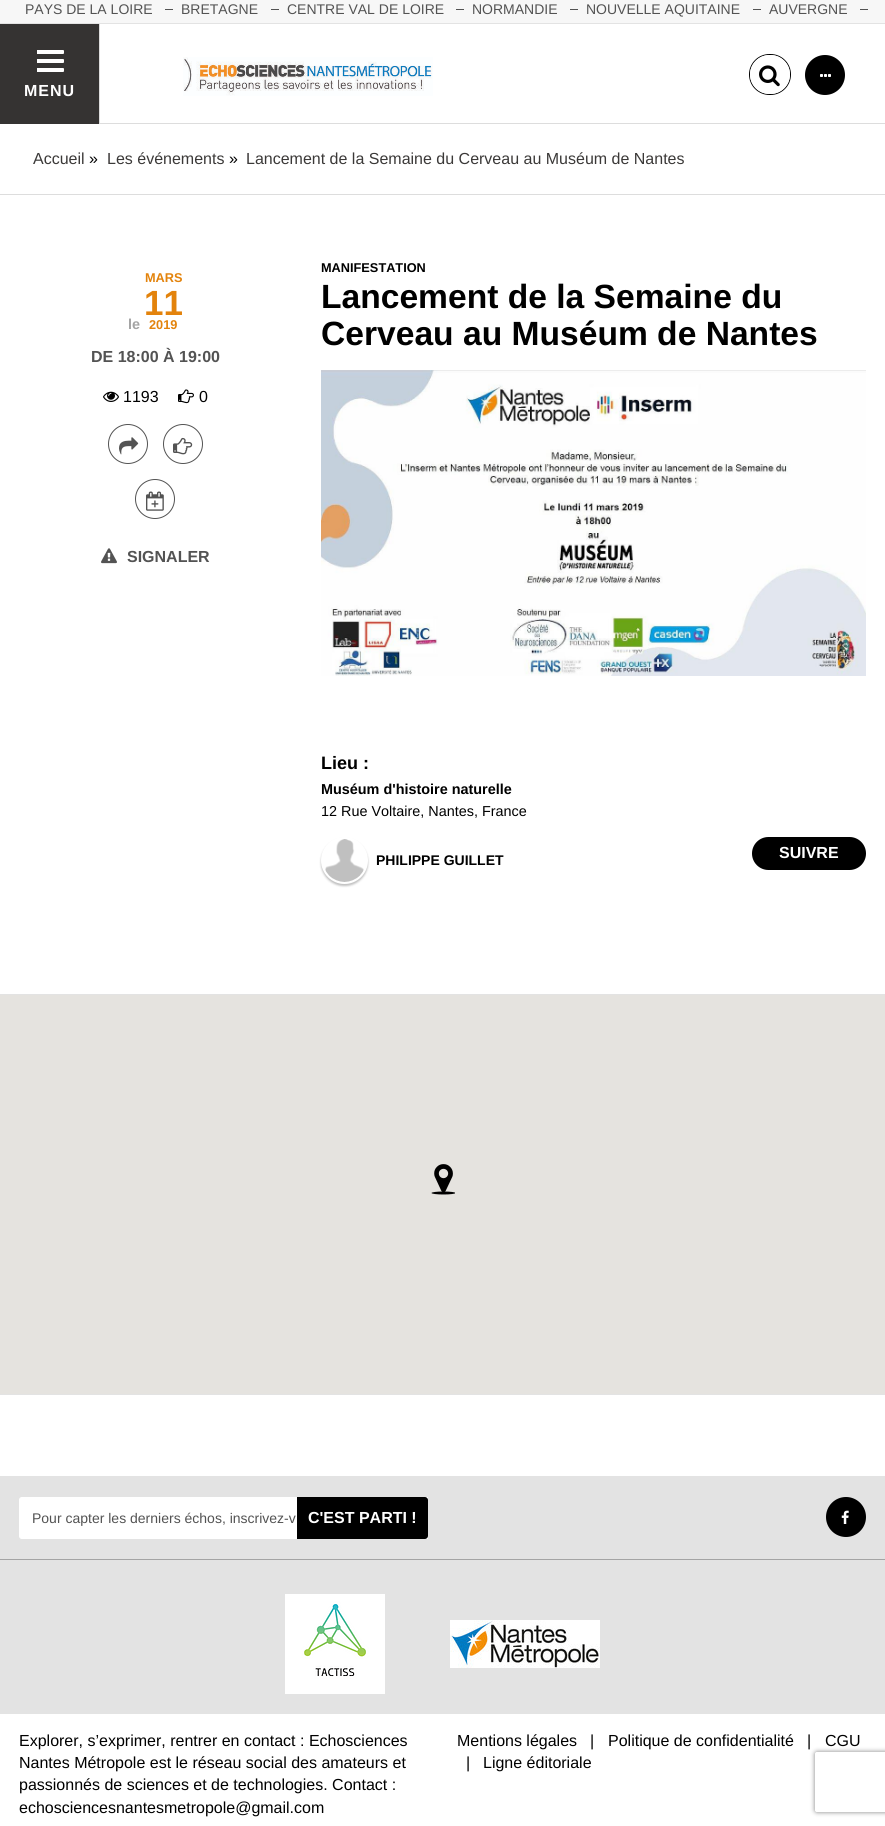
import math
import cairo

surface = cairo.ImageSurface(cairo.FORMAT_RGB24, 885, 1826)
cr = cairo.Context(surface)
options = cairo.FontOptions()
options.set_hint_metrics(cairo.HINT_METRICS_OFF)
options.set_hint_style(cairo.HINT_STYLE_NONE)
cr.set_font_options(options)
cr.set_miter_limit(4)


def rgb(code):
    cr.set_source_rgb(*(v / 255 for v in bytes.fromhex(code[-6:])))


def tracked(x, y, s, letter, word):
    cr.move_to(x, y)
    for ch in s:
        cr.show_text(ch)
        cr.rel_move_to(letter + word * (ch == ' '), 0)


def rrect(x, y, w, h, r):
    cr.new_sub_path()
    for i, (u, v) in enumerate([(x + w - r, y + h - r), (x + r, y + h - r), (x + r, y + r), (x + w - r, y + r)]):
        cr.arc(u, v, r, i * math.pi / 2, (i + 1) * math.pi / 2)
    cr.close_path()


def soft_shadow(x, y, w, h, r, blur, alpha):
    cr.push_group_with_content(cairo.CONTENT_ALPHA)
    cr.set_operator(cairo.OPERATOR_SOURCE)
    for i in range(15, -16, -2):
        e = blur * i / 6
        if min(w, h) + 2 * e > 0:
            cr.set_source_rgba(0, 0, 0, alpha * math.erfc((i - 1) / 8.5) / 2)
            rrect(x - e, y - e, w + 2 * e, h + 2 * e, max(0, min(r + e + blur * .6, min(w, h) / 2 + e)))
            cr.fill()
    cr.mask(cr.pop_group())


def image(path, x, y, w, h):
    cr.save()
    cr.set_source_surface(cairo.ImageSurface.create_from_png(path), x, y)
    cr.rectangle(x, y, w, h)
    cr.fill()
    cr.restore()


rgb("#ffffff")
cr.paint()
for x, y, w, h, color in [
    (0, 0, 885, 23, "#f7f7f7"),
    (0, 23, 885, 1, "#e3e3e3"),
    (165, 9, 8, 1, "#535353"),
    (271, 9, 8, 1, "#535353"),
    (456, 9, 8, 1, "#535353"),
    (570, 9, 8, 1, "#535353"),
    (753, 9, 8, 1, "#535353"),
    (860, 9, 8, 1, "#535353"),
    (100, 123, 785, 1, "#dddddd"),
    (0, 24, 99, 100, "#353332"),
    (99, 24, 1, 100, "#dddddd"),
]:
    rgb(color)
    cr.rectangle(x, y, w, h)
    cr.fill()
rgb("#ffffff")
rrect(36, 50, 28, 4, 1)
cr.fill()
rgb("#353332")
cr.rectangle(36, 50, 1, 4)
cr.fill()
rgb("#ffffff")
rrect(36, 59, 28, 4, 1)
cr.fill()
rgb("#353332")
cr.rectangle(36, 59, 1, 4)
cr.fill()
rgb("#ffffff")
rrect(36, 68, 28, 4, 1)
cr.fill()
rgb("#353332")
cr.rectangle(36, 68, 1, 4)
cr.fill()
image("img/1.png", 183, 57, 250, 39)
rrect(749.5, 54.5, 41, 40, 20)
rgb("#000000")
cr.set_line_width(1)
cr.stroke()
rgb("#ffffff")
rrect(750, 55, 40, 39, 19.5)
cr.fill()
image("img/2.png", 759, 65, 21, 22)
rgb("#000000")
cr.arc(825, 75, 20, 0, 2 * math.pi)
cr.fill()
image("img/3.png", 820, 74, 11, 3)
rgb("#dddddd")
cr.rectangle(0, 194, 885, 1)
cr.fill()
image("img/4.png", 103, 391, 16, 11)
image("img/5.png", 178, 389, 16, 15)
cr.arc(128, 444, 19.5, 0, 2 * math.pi)
rgb("#535353")
cr.stroke()
image("img/6.png", 119, 437, 20, 18)
cr.arc(183, 444, 19.5, 0, 2 * math.pi)
cr.stroke()
image("img/7.png", 173, 437, 20, 18)
cr.arc(155, 499, 19.5, 0, 2 * math.pi)
cr.stroke()
image("img/8.png", 146, 491, 18, 20)
image("img/9.png", 101, 548, 16, 16)
image("img/10.png", 321, 370, 545, 306)
rgb("#000000")
rrect(752, 837, 114, 33, 16.5)
cr.fill()
rgb("#000000")
soft_shadow(321, 839, 47, 47, 23.5, 1, 0.25)
rgb("#ffffff")
cr.arc(344.5, 860.5, 22.5, 0, 2 * math.pi)
cr.fill_preserve()
cr.set_line_width(2)
cr.stroke()
image("img/11.png", 325, 839, 39, 43)
for x, y, w, h, color in [
    (0, 994, 885, 1, "#e3e3e3"),
    (0, 1394, 885, 1, "#e3e3e3"),
    (0, 995, 885, 399, "#e5e3df"),
]:
    rgb(color)
    cr.rectangle(x, y, w, h)
    cr.fill()
image("img/12.png", 431, 1164, 24, 31)
rgb("#e3e3e3")
cr.rectangle(0, 1476, 885, 83)
cr.fill()
rgb("#ffffff")
cr.new_path()
cr.move_to(22, 1497.5)
cr.line_to(427.5, 1497.5)
cr.line_to(427.5, 1538.5)
cr.line_to(22, 1538.5)
cr.curve_to(20.5, 1538.5, 19.5, 1537.5, 19.5, 1536)
cr.line_to(19.5, 1500)
cr.curve_to(19.5, 1498.5, 20.5, 1497.5, 22, 1497.5)
cr.close_path()
cr.fill_preserve()
cr.set_line_width(1)
cr.stroke()
rgb("#000000")
cr.new_path()
cr.move_to(297, 1497)
cr.line_to(425, 1497)
cr.curve_to(426.5, 1497, 428, 1498.5, 428, 1500)
cr.line_to(428, 1536)
cr.curve_to(428, 1537.5, 426.5, 1539, 425, 1539)
cr.line_to(297, 1539)
cr.close_path()
cr.fill()
cr.save()
cr.set_fill_rule(cairo.FILL_RULE_EVEN_ODD)
cr.new_path()
cr.move_to(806, 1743)
cr.line_to(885, 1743)
cr.line_to(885, 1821)
cr.line_to(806, 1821)
cr.close_path()
cr.move_to(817, 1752)
cr.line_to(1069, 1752)
cr.curve_to(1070, 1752, 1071, 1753, 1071, 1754)
cr.line_to(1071, 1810)
cr.curve_to(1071, 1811, 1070, 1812, 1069, 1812)
cr.line_to(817, 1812)
cr.curve_to(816, 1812, 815, 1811, 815, 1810)
cr.line_to(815, 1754)
cr.curve_to(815, 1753, 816, 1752, 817, 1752)
cr.close_path()
cr.clip()
rgb("#808080")
soft_shadow(815, 1752, 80, 60, 2, 2.5, 1)
cr.restore()
cr.arc(846, 1517, 20, 0, 2 * math.pi)
cr.fill()
image("img/13.png", 841, 1510, 8, 14)
rgb("#e3e3e3")
cr.rectangle(0, 1560, 885, 154)
cr.fill()
rgb("#a4a4a4")
cr.rectangle(0, 1559, 885, 1)
cr.fill()
image("img/14.png", 285, 1594, 100, 100)
image("img/15.png", 450, 1620, 150, 48)
cr.select_font_face("Liberation Sans")
cr.set_font_size(14)
rgb("#535353")
for x, y, s in [
    (25, 14, "PAYS DE LA LOIRE"),
    (181, 14, "BRETAGNE"),
    (287, 14, "CENTRE VAL DE LOIRE"),
    (472, 14, "NORMANDIE"),
    (586, 14, "NOUVELLE AQUITAINE"),
    (769, 14, "AUVERGNE"),
]:
    cr.move_to(x, y)
    cr.show_text(s)
cr.select_font_face("Liberation Sans", cairo.FONT_SLANT_NORMAL, cairo.FONT_WEIGHT_BOLD)
cr.set_font_size(16)
rgb("#ffffff")
tracked(24, 96, "MENU", 1, 0)
cr.select_font_face("Liberation Sans")
rgb("#3b3938")
cr.move_to(33, 164)
cr.show_text("Accueil")
rgb("#000000")
cr.move_to(89, 164)
cr.show_text("»")
rgb("#3b3938")
cr.move_to(107, 164)
cr.show_text("Les événements")
rgb("#000000")
cr.move_to(229, 164)
cr.show_text("»")
rgb("#3b3938")
cr.move_to(246, 164)
cr.show_text("Lancement de la Semaine du Cerveau au Muséum de Nantes")
cr.select_font_face("Liberation Sans", cairo.FONT_SLANT_NORMAL, cairo.FONT_WEIGHT_BOLD)
cr.set_font_size(14.4)
rgb("#a4a4a4")
cr.move_to(128, 329)
cr.show_text("le")
cr.set_font_size(12.75)
rgb("#e3830c")
cr.move_to(145, 282)
cr.show_text("MARS")
cr.set_font_size(35)
cr.move_to(144, 315)
cr.show_text("11")
cr.set_font_size(12.75)
cr.move_to(149, 329)
cr.show_text("2019")
cr.set_font_size(16)
rgb("#535353")
cr.move_to(91, 362)
cr.show_text("DE 18:00 À 19:00")
cr.select_font_face("Liberation Sans")
rgb("#000000")
cr.move_to(123, 402)
cr.show_text("1193")
cr.move_to(199, 402)
cr.show_text("0")
cr.select_font_face("Liberation Sans", cairo.FONT_SLANT_NORMAL, cairo.FONT_WEIGHT_BOLD)
rgb("#535353")
cr.move_to(127, 562)
cr.show_text("SIGNALER")
cr.set_font_size(12.75)
rgb("#000000")
cr.move_to(321, 272)
cr.show_text("MANIFESTATION")
cr.set_font_size(33.6)
cr.move_to(321, 308)
cr.show_text("Lancement de la Semaine du")
cr.move_to(321, 345)
cr.show_text("Cerveau au Muséum de Nantes")
cr.set_font_size(18)
cr.move_to(321, 769)
cr.show_text("Lieu :")
cr.set_font_size(14.4)
cr.move_to(321, 794)
cr.show_text("Muséum d'histoire naturelle")
cr.select_font_face("Liberation Sans")
cr.move_to(321, 816)
cr.show_text("12 Rue Voltaire, Nantes, France")
cr.select_font_face("Liberation Sans", cairo.FONT_SLANT_NORMAL, cairo.FONT_WEIGHT_BOLD)
cr.set_font_size(16)
rgb("#ffffff")
cr.move_to(779, 858)
cr.show_text("SUIVRE")
cr.set_font_size(14)
rgb("#000000")
cr.move_to(376, 865)
cr.show_text("PHILIPPE GUILLET")
cr.select_font_face("Liberation Sans")
rgb("#535353")
cr.move_to(32, 1523)
cr.show_text("Pour capter les derniers échos, inscrivez-v")
cr.select_font_face("Liberation Sans", cairo.FONT_SLANT_NORMAL, cairo.FONT_WEIGHT_BOLD)
cr.set_font_size(16)
rgb("#ffffff")
cr.move_to(308, 1523)
cr.show_text("C'EST PARTI !")
cr.select_font_face("Liberation Sans")
rgb("#000000")
for x, y, s in [
    (19, 1746, "Explorer, s’exprimer, rentrer en contact : Echosciences"),
    (19, 1768, "Nantes Métropole est le réseau social des amateurs et"),
    (19, 1790, "passionnés de sciences et de technologies. Contact :"),
    (19, 1813, "echosciencesnantesmetropole@gmail.com"),
    (457, 1746, "Mentions légales"),
    (590, 1746, "|"),
    (608, 1746, "Politique de confidentialité"),
    (807, 1746, "|"),
    (825, 1746, "CGU"),
    (466, 1768, "|"),
    (483, 1768, "Ligne éditoriale"),
]:
    cr.move_to(x, y)
    cr.show_text(s)
surface.write_to_png("page.png")
